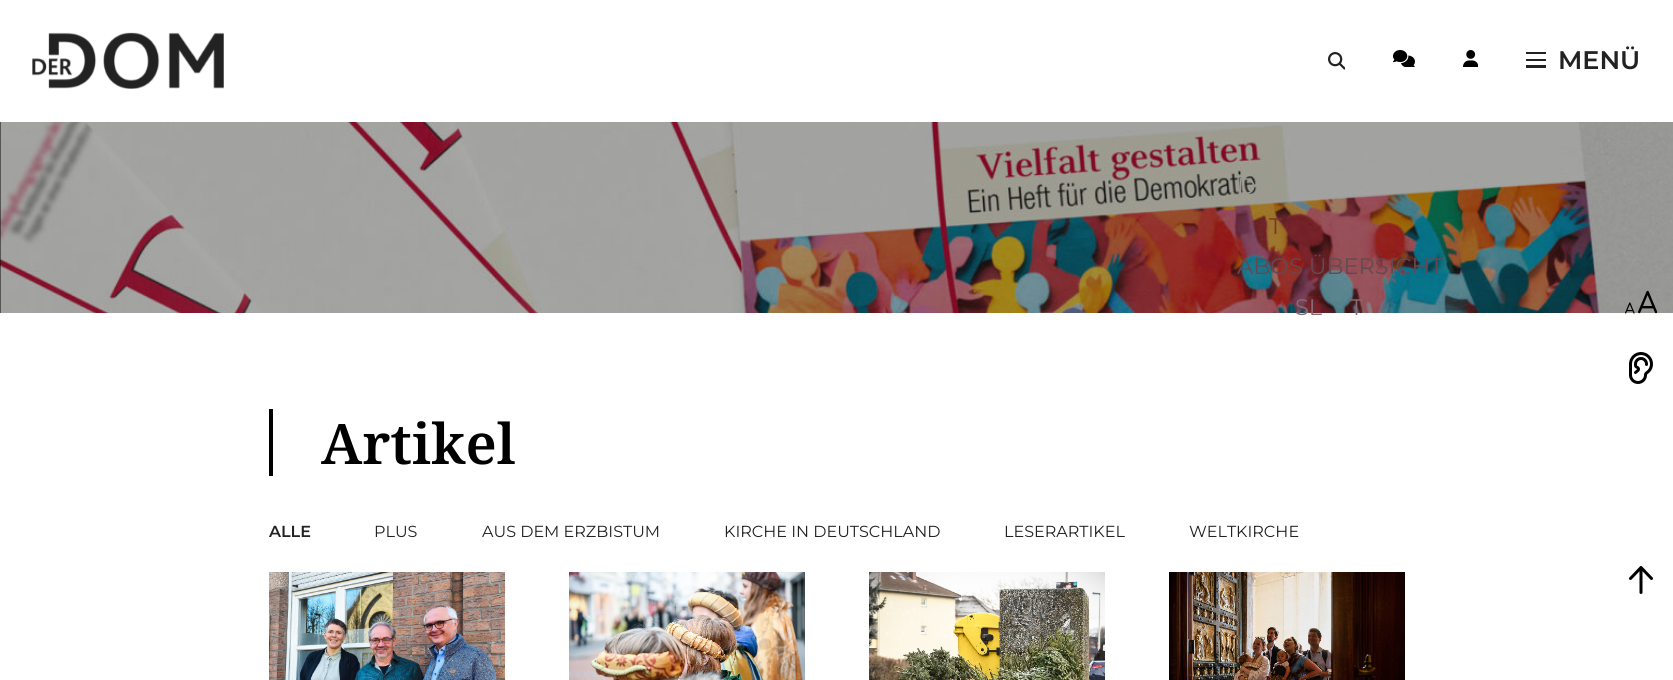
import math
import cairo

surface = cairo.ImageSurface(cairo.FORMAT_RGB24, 1673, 680)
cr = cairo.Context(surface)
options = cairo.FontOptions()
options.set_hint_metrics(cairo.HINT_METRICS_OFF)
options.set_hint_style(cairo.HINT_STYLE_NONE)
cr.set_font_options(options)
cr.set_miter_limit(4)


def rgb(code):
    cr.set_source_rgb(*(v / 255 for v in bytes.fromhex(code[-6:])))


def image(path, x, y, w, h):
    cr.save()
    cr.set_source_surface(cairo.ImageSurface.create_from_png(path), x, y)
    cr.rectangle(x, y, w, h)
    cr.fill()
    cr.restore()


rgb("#ffffff")
cr.paint()
image("img/1.png", 32, 32, 192, 57)
image("img/2.png", 1328, 52, 17, 18)
image("img/3.png", 1393, 50, 22, 17)
image("img/4.png", 1463, 50, 15, 17)
for x, y, w, h, color in [
    (1526, 52, 20, 2, "#222222"),
    (1526, 59, 20, 2, "#222222"),
    (1526, 65, 20, 3, "#222222"),
    (0, 122, 1673, 191, "#0a0a0a"),
]:
    rgb(color)
    cr.rectangle(x, y, w, h)
    cr.fill()
image("img/5.png", 0, 122, 1673, 191)
rgb("#000000")
cr.rectangle(269, 409, 4, 67)
cr.fill()
image("img/6.png", 269, 572, 236, 108)
image("img/7.png", 569, 572, 236, 108)
image("img/8.png", 869, 572, 236, 108)
image("img/9.png", 1169, 572, 236, 108)
image("img/10.png", 1625, 302, 10, 12)
image("img/11.png", 1638, 290, 19, 24)
image("img/12.png", 1629, 352, 24, 32)
image("img/13.png", 1629, 566, 24, 28)
cr.select_font_face("Montserrat Thin")
cr.set_font_size(25.5)
rgb("#222222")
cr.move_to(1558, 69)
cr.show_text("MENÜ")
cr.select_font_face("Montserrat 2 Thin")
cr.set_font_size(22.5)
rgb("#9a9a96")
cr.move_to(1237, 194)
cr.show_text("D")
rgb("#793532")
cr.move_to(1269, 234)
cr.show_text("T")
rgb("#634951")
cr.move_to(1237, 274)
cr.show_text("ABOS ÜBERSICHT")
rgb("#876c74")
cr.move_to(1295, 315)
cr.show_text("SL")
cr.move_to(1350, 315)
cr.show_text("T")
cr.select_font_face("Noto Serif SemiBold")
cr.set_font_size(56)
rgb("#000000")
cr.move_to(321, 464)
cr.show_text("Artikel")
cr.select_font_face("Montserrat Thin")
cr.set_font_size(16)
rgb("#222222")
cr.move_to(269, 537)
cr.show_text("ALLE")
cr.select_font_face("Montserrat 2 Thin")
for x, y, s in [
    (374, 537, "PLUS"),
    (482, 537, "AUS DEM ERZBISTUM"),
    (724, 537, "KIRCHE IN DEUTSCHLAND"),
    (1004, 537, "LESERARTIKEL"),
    (1189, 537, "WELTKIRCHE"),
]:
    cr.move_to(x, y)
    cr.show_text(s)
surface.write_to_png("page.png")
